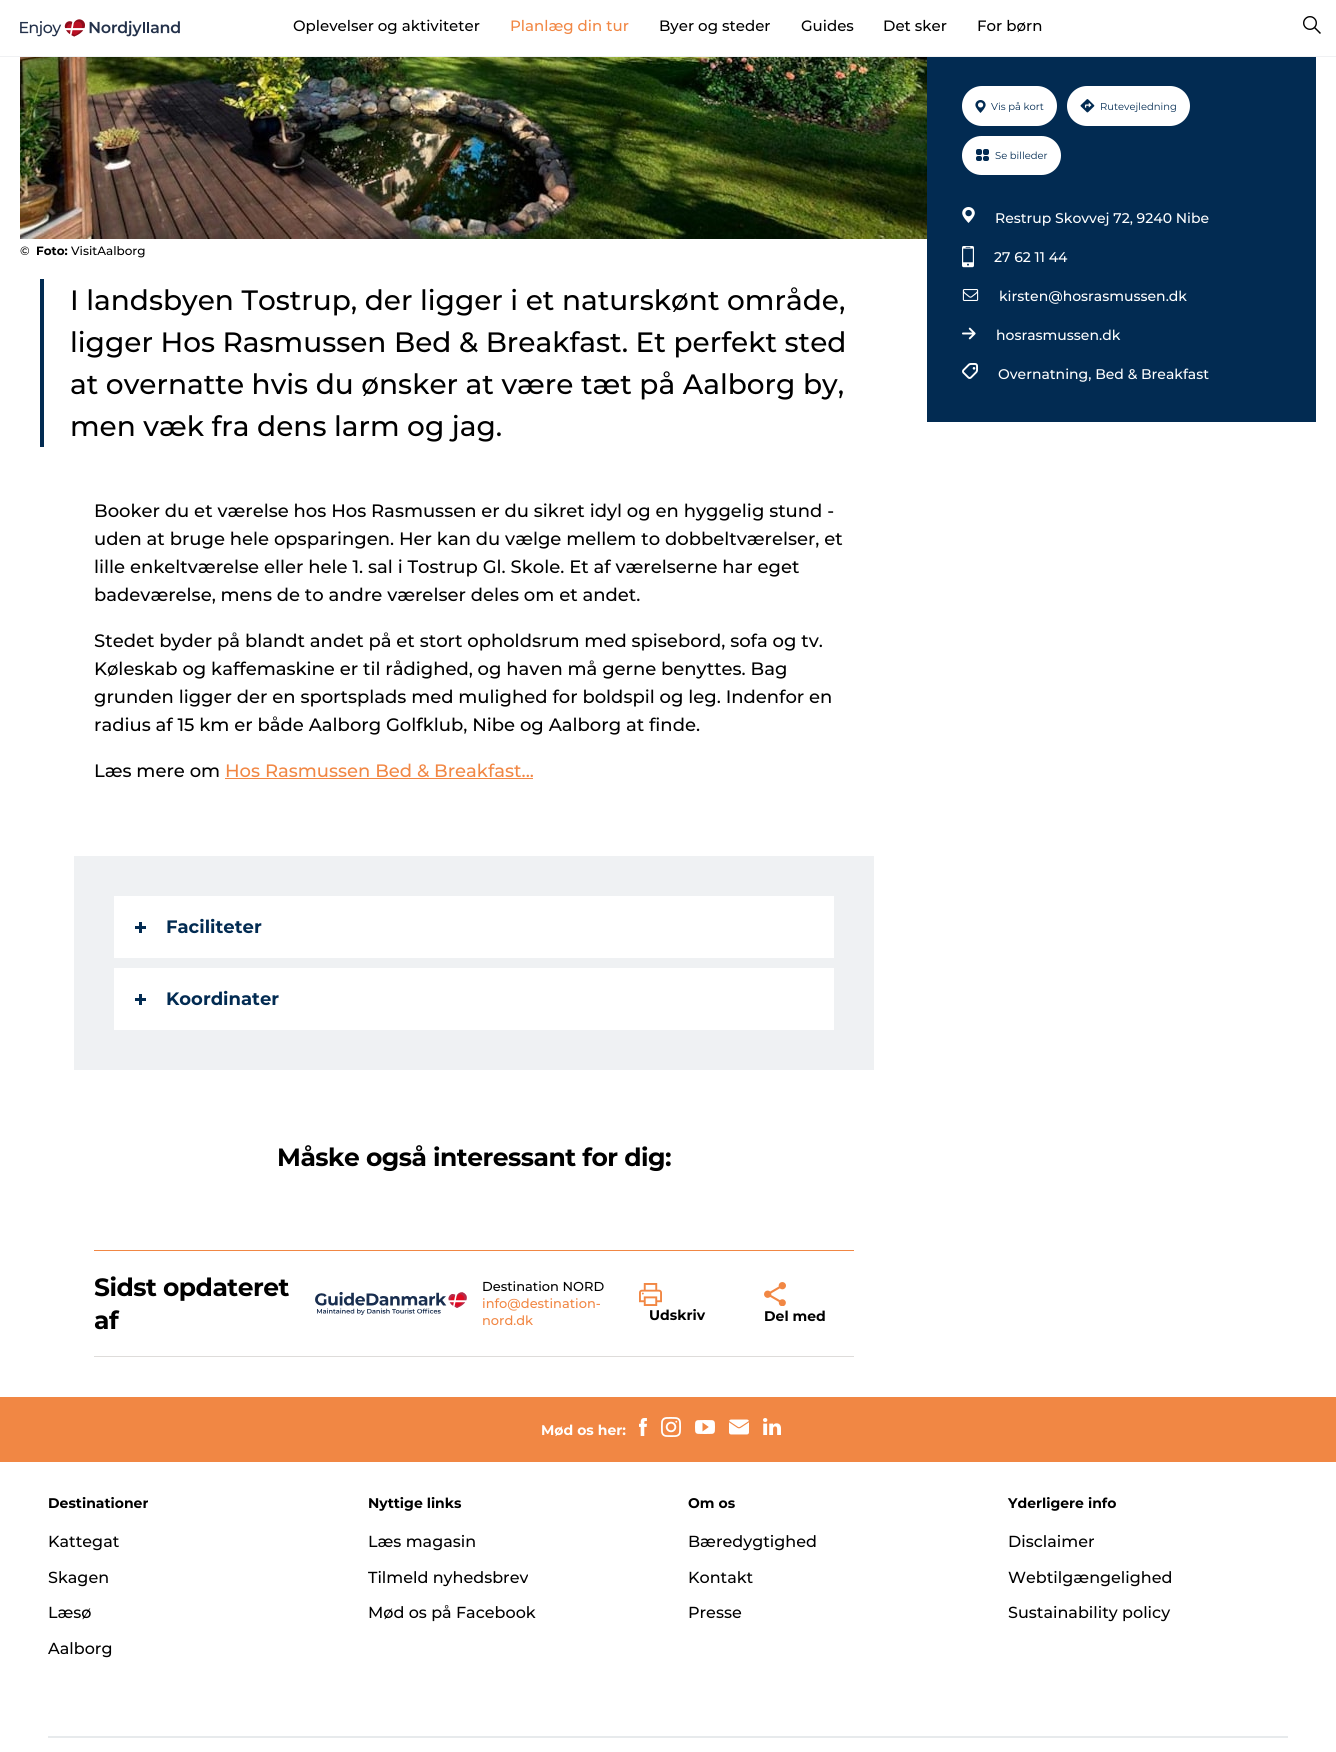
import math
import cairo

surface = cairo.ImageSurface(cairo.FORMAT_RGB24, 1336, 1752)
cr = cairo.Context(surface)
options = cairo.FontOptions()
options.set_hint_metrics(cairo.HINT_METRICS_OFF)
options.set_hint_style(cairo.HINT_STYLE_NONE)
cr.set_font_options(options)
cr.set_miter_limit(4)


def rgb(code):
    cr.set_source_rgb(*(v / 255 for v in bytes.fromhex(code[-6:])))


def tracked(x, y, s, letter, word):
    cr.move_to(x, y)
    for ch in s:
        cr.show_text(ch)
        cr.rel_move_to(letter + word * (ch == ' '), 0)


def rrect(x, y, w, h, r):
    cr.new_sub_path()
    for i, (u, v) in enumerate([(x + w - r, y + h - r), (x + r, y + h - r), (x + r, y + r), (x + w - r, y + r)]):
        cr.arc(u, v, r, i * math.pi / 2, (i + 1) * math.pi / 2)
    cr.close_path()


def image(path, x, y, w, h):
    cr.save()
    cr.set_source_surface(cairo.ImageSurface.create_from_png(path), x, y)
    cr.rectangle(x, y, w, h)
    cr.fill()
    cr.restore()


rgb("#ffffff")
cr.paint()
rgb("#f0f1f3")
cr.rectangle(0, 56, 1336, 1)
cr.fill()
image("img/1.png", 20, 19, 160, 18)
image("img/2.png", 1303, 16, 18, 18)
image("img/3.png", 20, 57, 907, 182)
rgb("#022b52")
cr.rectangle(927, 57, 389, 365)
cr.fill()
rgb("#ffffff")
rrect(962, 86, 95, 40, 20)
cr.fill()
image("img/4.png", 975, 100, 11, 13)
rrect(1067, 86, 123, 40, 20)
cr.fill()
image("img/5.png", 1080, 99, 15, 14)
rrect(962, 136, 99, 39, 19.5)
cr.fill()
image("img/6.png", 976, 149, 13, 12)
image("img/7.png", 962, 207, 13, 16)
image("img/8.png", 962, 246, 12, 22)
image("img/9.png", 962, 289, 17, 12)
image("img/10.png", 962, 327, 14, 13)
image("img/11.png", 962, 363, 16, 16)
for x, y, w, h, color in [
    (40, 279, 4, 168, "#022b52"),
    (225, 778, 308, 1, "#f18744"),
    (74, 856, 800, 214, "#eff1f3"),
    (114, 896, 720, 62, "#ffffff"),
    (135, 926, 11, 3, "#022b52"),
    (139, 922, 3, 11, "#022b52"),
    (114, 968, 720, 62, "#ffffff"),
    (135, 998, 11, 3, "#022b52"),
    (139, 994, 3, 11, "#022b52"),
    (94, 1250, 760, 1, "#f18744"),
    (94, 1356, 760, 1, "#dedcda"),
]:
    rgb(color)
    cr.rectangle(x, y, w, h)
    cr.fill()
image("img/12.png", 315, 1292, 152, 23)
image("img/13.png", 639, 1283, 23, 23)
image("img/14.png", 764, 1282, 22, 24)
rgb("#f18744")
cr.rectangle(0, 1397, 1336, 65)
cr.fill()
image("img/15.png", 639, 1418, 8, 18)
image("img/16.png", 661, 1417, 20, 20)
image("img/17.png", 695, 1420, 20, 14)
image("img/18.png", 729, 1419, 20, 16)
image("img/19.png", 763, 1418, 18, 17)
rgb("#e7eaec")
cr.rectangle(48, 1736, 1240, 2)
cr.fill()
cr.select_font_face("Montserrat Medium")
cr.set_font_size(15)
rgb("#000000")
cr.move_to(293, 31)
cr.show_text("Oplevelser og aktiviteter")
rgb("#f18744")
cr.move_to(510, 31)
cr.show_text("Planlæg din tur")
rgb("#000000")
for x, y, s in [
    (659, 31, "Byer og steder"),
    (801, 31, "Guides"),
    (883, 31, "Det sker"),
    (977, 31, "For børn"),
]:
    cr.move_to(x, y)
    cr.show_text(s)
cr.set_font_size(12)
cr.move_to(20, 255)
cr.show_text("©")
cr.select_font_face("Montserrat", cairo.FONT_SLANT_NORMAL, cairo.FONT_WEIGHT_BOLD)
cr.move_to(36, 255)
cr.show_text("Foto:")
cr.select_font_face("Montserrat Medium")
cr.move_to(71, 255)
cr.show_text("VisitAalborg")
cr.select_font_face("Montserrat")
cr.set_font_size(10)
rgb("#022b52")
for x, y, s in [
    (991, 110, "Vis på kort"),
    (1100, 110, "Rutevejledning"),
    (995, 159, "Se billeder"),
]:
    cr.move_to(x, y)
    cr.show_text(s)
cr.select_font_face("Montserrat Medium")
cr.set_font_size(14)
rgb("#ffffff")
for x, y, s in [
    (995, 223, "Restrup Skovvej 72, 9240 Nibe"),
    (994, 262, "27 62 11 44"),
    (999, 301, "kirsten@hosrasmussen.dk"),
    (996, 340, "hosrasmussen.dk"),
    (998, 379, "Overnatning, Bed & Breakfast"),
]:
    cr.move_to(x, y)
    cr.show_text(s)
cr.set_font_size(28)
rgb("#000000")
for x, y, s in [
    (70, 310, "I landsbyen Tostrup, der ligger i et naturskønt område,"),
    (70, 352, "ligger Hos Rasmussen Bed & Breakfast. Et perfekt sted"),
    (70, 394, "at overnatte hvis du ønsker at være tæt på Aalborg by,"),
    (70, 436, "men væk fra dens larm og jag."),
]:
    cr.move_to(x, y)
    cr.show_text(s)
cr.set_font_size(18)
for x, y, s in [
    (94, 517, "Booker du et værelse hos Hos Rasmussen er du sikret idyl og en hyggelig stund -"),
    (94, 545, "uden at bruge hele opsparingen. Her kan du vælge mellem to dobbeltværelser, et"),
    (94, 573, "lille enkeltværelse eller hele 1. sal i Tostrup Gl. Skole. Et af værelserne har eget"),
    (94, 601, "badeværelse, mens de to andre værelser deles om et andet."),
    (94, 647, "Stedet byder på blandt andet på et stort opholdsrum med spisebord, sofa og tv."),
    (94, 675, "Køleskab og kaffemaskine er til rådighed, og haven må gerne benyttes. Bag"),
    (94, 703, "grunden ligger der en sportsplads med mulighed for boldspil og leg. Indenfor en"),
    (94, 731, "radius af 15 km er både Aalborg Golfklub, Nibe og Aalborg at finde."),
    (94, 777, "Læs mere om"),
]:
    cr.move_to(x, y)
    cr.show_text(s)
rgb("#f18744")
cr.move_to(225, 777)
cr.show_text("Hos Rasmussen Bed & Breakfast...")
cr.select_font_face("Montserrat", cairo.FONT_SLANT_NORMAL, cairo.FONT_WEIGHT_BOLD)
rgb("#022b52")
cr.move_to(166, 933)
cr.show_text("Faciliteter")
cr.move_to(166, 1005)
cr.show_text("Koordinater")
cr.set_font_size(25)
rgb("#000000")
for x, y, s in [
    (277, 1166, "Måske også interessant for dig:"),
    (94, 1296, "Sidst opdateret"),
    (94, 1329, "af"),
]:
    tracked(x, y, s, -0.5, 0)
cr.select_font_face("Montserrat Medium")
cr.set_font_size(13)
cr.move_to(482, 1291)
cr.show_text("Destination NORD")
rgb("#f18744")
cr.move_to(482, 1308)
cr.show_text("info@destination-")
cr.move_to(482, 1325)
cr.show_text("nord.dk")
cr.select_font_face("Montserrat", cairo.FONT_SLANT_NORMAL, cairo.FONT_WEIGHT_BOLD)
cr.set_font_size(14)
rgb("#000000")
cr.move_to(649, 1320)
cr.show_text("Udskriv")
cr.move_to(764, 1321)
cr.show_text("Del med")
rgb("#ffffff")
cr.move_to(541, 1435)
cr.show_text("Mød os her:")
rgb("#000000")
cr.move_to(48, 1508)
cr.show_text("Destinationer")
cr.select_font_face("Montserrat Medium")
cr.set_font_size(16)
for x, y, s in [
    (48, 1547, "Kattegat"),
    (48, 1583, "Skagen"),
    (48, 1618, "Læsø"),
    (48, 1654, "Aalborg"),
]:
    cr.move_to(x, y)
    cr.show_text(s)
cr.select_font_face("Montserrat", cairo.FONT_SLANT_NORMAL, cairo.FONT_WEIGHT_BOLD)
cr.set_font_size(14)
cr.move_to(368, 1508)
cr.show_text("Nyttige links")
cr.select_font_face("Montserrat Medium")
cr.set_font_size(16)
for x, y, s in [
    (368, 1547, "Læs magasin"),
    (368, 1583, "Tilmeld nyhedsbrev"),
    (368, 1618, "Mød os på Facebook"),
]:
    cr.move_to(x, y)
    cr.show_text(s)
cr.select_font_face("Montserrat", cairo.FONT_SLANT_NORMAL, cairo.FONT_WEIGHT_BOLD)
cr.set_font_size(14)
cr.move_to(688, 1508)
cr.show_text("Om os")
cr.select_font_face("Montserrat Medium")
cr.set_font_size(16)
for x, y, s in [
    (688, 1547, "Bæredygtighed"),
    (688, 1583, "Kontakt"),
    (688, 1618, "Presse"),
]:
    cr.move_to(x, y)
    cr.show_text(s)
cr.select_font_face("Montserrat", cairo.FONT_SLANT_NORMAL, cairo.FONT_WEIGHT_BOLD)
cr.set_font_size(14)
cr.move_to(1008, 1508)
cr.show_text("Yderligere info")
cr.select_font_face("Montserrat Medium")
cr.set_font_size(16)
for x, y, s in [
    (1008, 1547, "Disclaimer"),
    (1008, 1583, "Webtilgængelighed"),
    (1008, 1618, "Sustainability policy"),
]:
    cr.move_to(x, y)
    cr.show_text(s)
surface.write_to_png("page.png")
